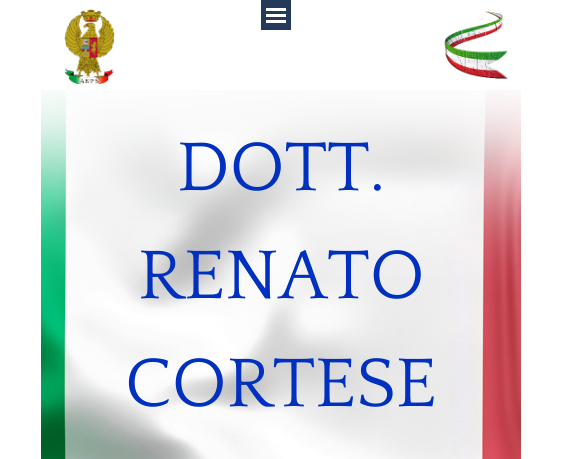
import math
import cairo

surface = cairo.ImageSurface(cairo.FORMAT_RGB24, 562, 459)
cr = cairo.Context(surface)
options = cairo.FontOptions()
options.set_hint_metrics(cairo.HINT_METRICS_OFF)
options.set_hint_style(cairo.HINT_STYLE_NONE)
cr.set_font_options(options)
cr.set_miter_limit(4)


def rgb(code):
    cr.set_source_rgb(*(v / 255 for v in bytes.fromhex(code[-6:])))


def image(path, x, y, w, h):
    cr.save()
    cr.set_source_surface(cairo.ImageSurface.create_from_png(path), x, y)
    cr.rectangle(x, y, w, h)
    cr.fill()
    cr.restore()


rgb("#ffffff")
cr.paint()
image("img/1.png", 64, 9, 51, 75)
for x, y, w, h, color in [
    (261, 0, 30, 30, "#253a58"),
    (266, 8, 20, 3, "#ffffff"),
    (266, 14, 20, 3, "#ffffff"),
    (266, 20, 20, 3, "#ffffff"),
]:
    rgb(color)
    cr.rectangle(x, y, w, h)
    cr.fill()
image("img/2.png", 444, 11, 64, 68)
image("img/3.png", 41, 90, 480, 369)
cr.select_font_face("Quattrocento")
cr.set_font_size(72)
rgb("#0030bf")
for x, y, s in [
    (177, 190, "DOTT."),
    (138, 298, "RENATO"),
    (125, 406, "CORTESE"),
]:
    cr.move_to(x, y)
    cr.show_text(s)
surface.write_to_png("page.png")
